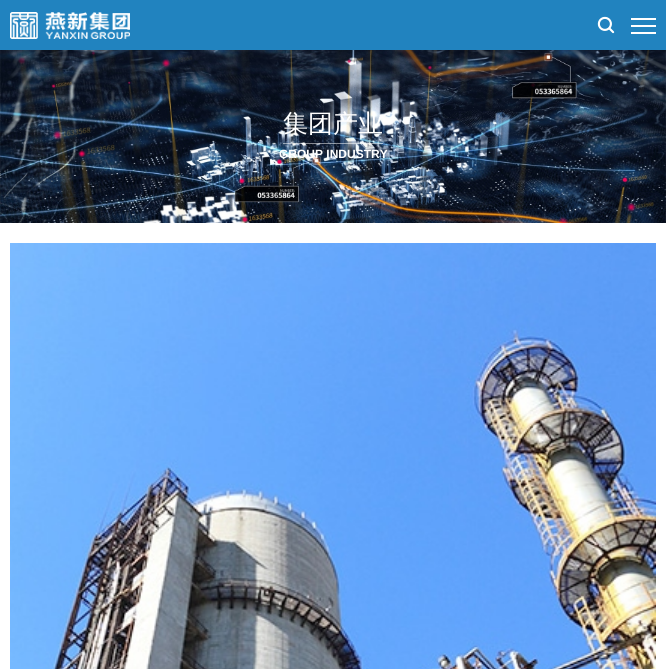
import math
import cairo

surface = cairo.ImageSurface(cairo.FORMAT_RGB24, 666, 669)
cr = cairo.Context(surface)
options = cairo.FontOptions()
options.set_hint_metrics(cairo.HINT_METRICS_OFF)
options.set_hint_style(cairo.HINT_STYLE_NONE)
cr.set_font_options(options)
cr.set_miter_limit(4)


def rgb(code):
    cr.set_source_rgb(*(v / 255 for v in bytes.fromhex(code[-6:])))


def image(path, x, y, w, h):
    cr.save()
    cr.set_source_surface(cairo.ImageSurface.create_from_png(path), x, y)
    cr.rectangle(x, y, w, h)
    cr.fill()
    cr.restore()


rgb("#ffffff")
cr.paint()
rgb("#2183bf")
cr.rectangle(0, 0, 666, 50)
cr.fill()
image("img/1.png", 10, 12, 120, 27)
image("img/2.png", 597, 16, 18, 18)
for x, y, w, h, color in [
    (631, 25, 25, 2, "#ffffff"),
    (631, 18, 25, 2, "#ffffff"),
    (631, 32, 25, 2, "#ffffff"),
]:
    rgb(color)
    cr.rectangle(x, y, w, h)
    cr.fill()
image("img/3.png", 0, 50, 666, 173)
cr.set_source_rgba(1, 1, 1, 0.5)
cr.rectangle(283, 143, 100, 1)
cr.fill()
image("img/4.png", 10, 243, 646, 426)
cr.select_font_face("WenQuanYi Zen Hei Medium")
cr.set_font_size(25)
rgb("#ffffff")
cr.move_to(283, 132)
cr.show_text("集团产业")
cr.select_font_face("Liberation Sans", cairo.FONT_SLANT_NORMAL, cairo.FONT_WEIGHT_BOLD)
cr.set_font_size(12)
cr.move_to(279, 158)
cr.show_text("GROUP INDUSTRY")
surface.write_to_png("page.png")
